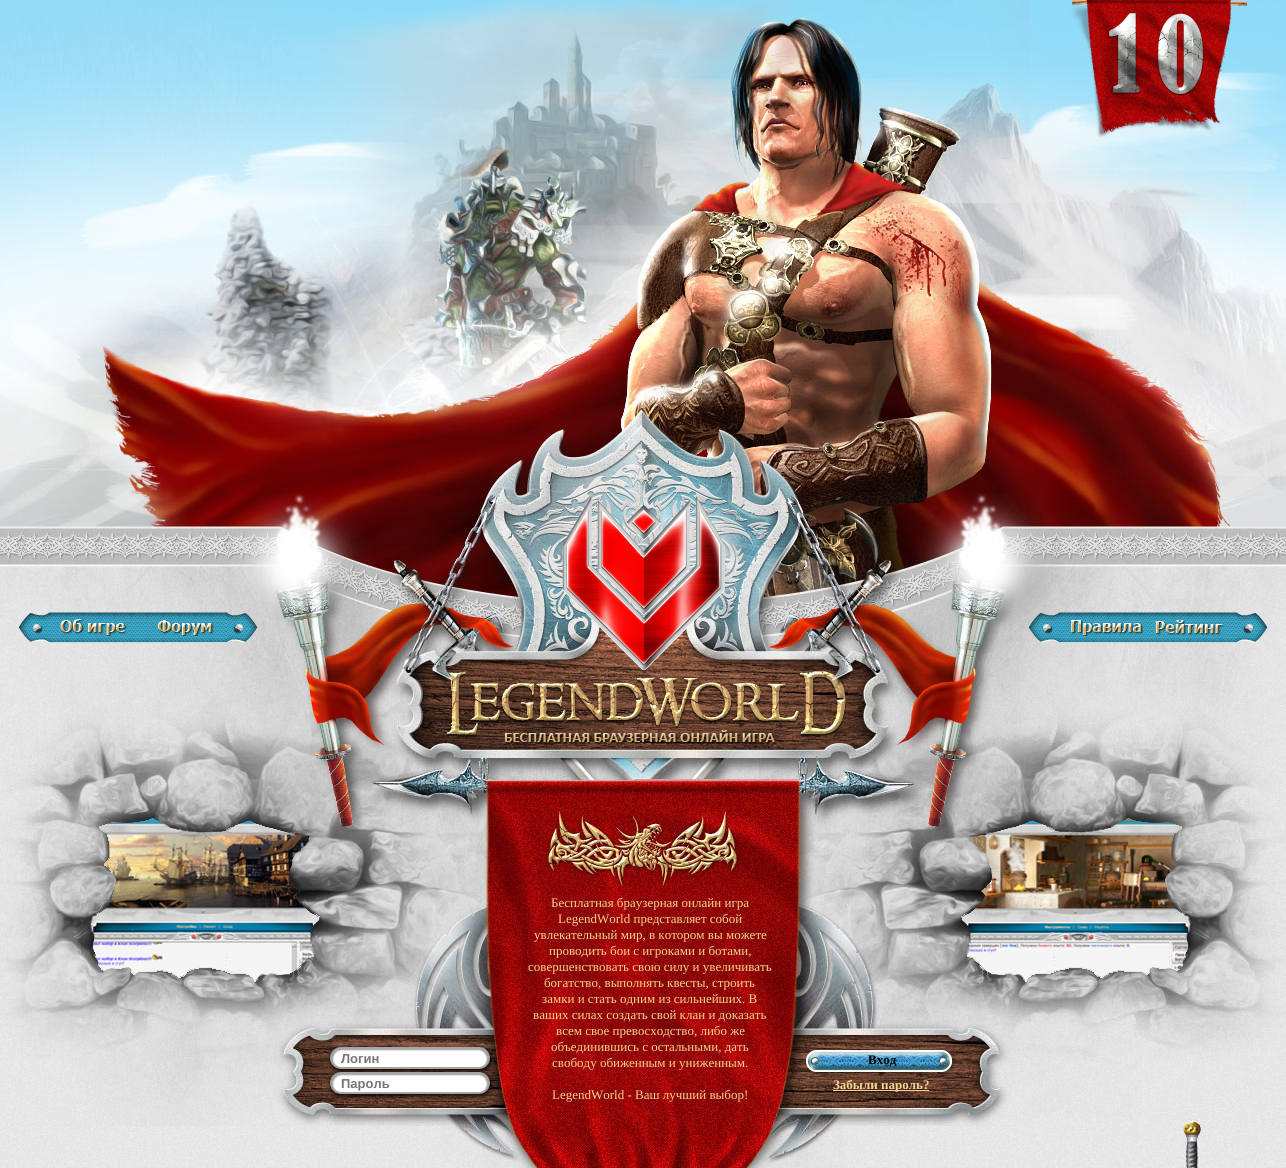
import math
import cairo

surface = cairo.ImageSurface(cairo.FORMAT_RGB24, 1286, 1168)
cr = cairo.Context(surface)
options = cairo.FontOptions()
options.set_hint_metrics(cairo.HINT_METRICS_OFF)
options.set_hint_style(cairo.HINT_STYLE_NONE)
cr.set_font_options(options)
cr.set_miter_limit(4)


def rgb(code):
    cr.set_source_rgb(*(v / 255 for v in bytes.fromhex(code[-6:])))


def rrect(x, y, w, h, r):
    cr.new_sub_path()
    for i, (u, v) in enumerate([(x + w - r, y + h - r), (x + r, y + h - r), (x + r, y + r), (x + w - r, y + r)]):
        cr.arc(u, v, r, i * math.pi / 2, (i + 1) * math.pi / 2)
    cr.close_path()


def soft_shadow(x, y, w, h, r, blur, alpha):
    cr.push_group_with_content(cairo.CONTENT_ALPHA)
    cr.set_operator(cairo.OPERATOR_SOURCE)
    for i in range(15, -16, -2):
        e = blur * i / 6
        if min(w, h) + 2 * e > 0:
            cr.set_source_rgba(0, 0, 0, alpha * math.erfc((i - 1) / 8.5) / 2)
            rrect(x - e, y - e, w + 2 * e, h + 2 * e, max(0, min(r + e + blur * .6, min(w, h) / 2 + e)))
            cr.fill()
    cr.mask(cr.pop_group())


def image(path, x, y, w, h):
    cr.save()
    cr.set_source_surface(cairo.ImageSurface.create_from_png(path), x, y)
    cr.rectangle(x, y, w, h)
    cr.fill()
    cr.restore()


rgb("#ffffff")
cr.paint()
image("img/1.png", 0, 1126, 1286, 42)
image("img/2.png", 0, 0, 1286, 527)
image("img/3.png", 0, 527, 1286, 248)
image("img/4.png", 18, 612, 32, 31)
image("img/5.png", 226, 612, 32, 31)
image("img/6.png", 50, 612, 176, 31)
image("img/7.png", 60, 619, 67, 17)
image("img/8.png", 158, 620, 56, 16)
image("img/17.png", 0, 775, 1286, 351)
image("img/9.png", 230, 493, 154, 334)
image("img/10.png", 562, 496, 163, 174)
image("img/12.png", 1028, 612, 32, 31)
image("img/11.png", 897, 493, 154, 334)
image("img/13.png", 1236, 612, 32, 31)
image("img/14.png", 1060, 612, 176, 31)
image("img/15.png", 1071, 620, 72, 16)
image("img/16.png", 1155, 620, 68, 15)
image("img/19.png", 89, 818, 231, 164)
image("img/18.png", 81, 812, 245, 175)
image("img/21.png", 961, 818, 231, 164)
image("img/20.png", 955, 812, 245, 175)
rgb("#000000")
soft_shadow(331, 1049, 160, 22, 10, 2.5, 1)
image("img/22.png", 330, 1047, 11, 22)
image("img/23.png", 479, 1047, 11, 22)
image("img/24.png", 341, 1047, 138, 22)
soft_shadow(331, 1074, 160, 22, 10, 2.5, 1)
image("img/25.png", 330, 1072, 11, 22)
image("img/26.png", 479, 1072, 11, 22)
image("img/24.png", 341, 1072, 138, 22)
image("img/27.png", 806, 1050, 27, 26)
image("img/28.png", 932, 1050, 23, 26)
image("img/29.png", 833, 1050, 99, 26)
rgb("#f6d391")
cr.rectangle(833, 1090, 96, 1)
cr.fill()
image("img/30.png", 442, 1126, 402, 42)
image("img/31.png", 1029, 1118, 224, 50)
cr.select_font_face("Liberation Serif")
cr.set_font_size(13)
for x, y, s in [
    (551, 907, "Бесплатная браузерная онлайн игра"),
    (558, 923, "LegendWorld представляет собой"),
    (534, 939, "увлекательный мир, в котором вы можете"),
    (549, 955, "проводить бои с игроками и ботами,"),
    (528, 971, "совершенствовать свою силу и увеличивать"),
    (544, 987, "богатство, выполнять квесты, строить"),
    (542, 1003, "замки и стать одним из сильнейших. В"),
    (533, 1019, "ваших силах создать свой клан и доказать"),
    (556, 1035, "всем свое превосходство, либо же"),
    (551, 1051, "объединившись с остальными, дать"),
    (552, 1067, "свободу обиженным и униженным."),
    (552, 1099, "LegendWorld - Ваш лучший выбор!"),
]:
    cr.move_to(x, y)
    cr.show_text(s)
cr.select_font_face("Liberation Sans", cairo.FONT_SLANT_NORMAL, cairo.FONT_WEIGHT_BOLD)
rgb("#757575")
cr.move_to(341, 1063)
cr.show_text("Логин")
cr.move_to(341, 1088)
cr.show_text("Пароль")
cr.select_font_face("Liberation Serif", cairo.FONT_SLANT_NORMAL, cairo.FONT_WEIGHT_BOLD)
rgb("#000000")
cr.move_to(868, 1064)
cr.show_text("Вход")
rgb("#f6d391")
cr.move_to(833, 1089)
cr.show_text("Забыли пароль?")
surface.write_to_png("page.png")
